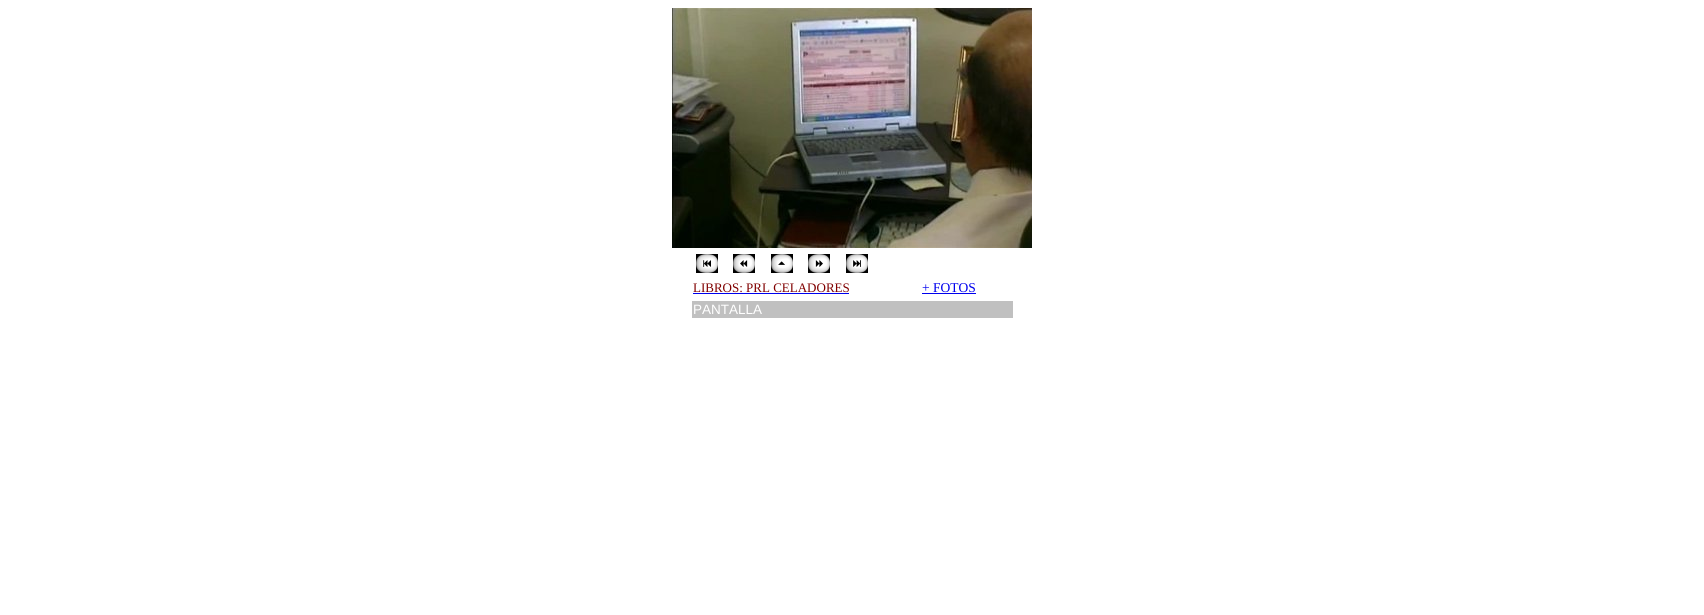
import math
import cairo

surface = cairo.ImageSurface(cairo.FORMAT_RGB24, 1704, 615)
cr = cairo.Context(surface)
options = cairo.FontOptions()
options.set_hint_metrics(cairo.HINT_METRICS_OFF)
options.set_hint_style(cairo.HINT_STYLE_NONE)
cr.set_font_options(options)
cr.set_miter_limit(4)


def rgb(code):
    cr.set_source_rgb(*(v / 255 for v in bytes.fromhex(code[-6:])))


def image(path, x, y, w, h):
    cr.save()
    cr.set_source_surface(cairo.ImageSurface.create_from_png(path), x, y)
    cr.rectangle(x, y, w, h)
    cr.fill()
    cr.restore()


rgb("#ffffff")
cr.paint()
image("img/1.png", 672, 8, 360, 240)
image("img/2.png", 696, 254, 22, 19)
image("img/3.png", 733, 254, 22, 19)
image("img/4.png", 771, 254, 22, 19)
image("img/5.png", 808, 254, 22, 19)
image("img/6.png", 846, 254, 22, 19)
for x, y, w, h, color in [
    (693, 293, 156, 1, "#0000ee"),
    (922, 293, 54, 1, "#0000ee"),
    (692, 301, 321, 17, "#c0c0c0"),
]:
    rgb(color)
    cr.rectangle(x, y, w, h)
    cr.fill()
cr.select_font_face("Liberation Serif")
cr.set_font_size(13)
rgb("#800000")
cr.move_to(693, 292)
cr.show_text("LIBROS: PRL CELADORES")
cr.set_font_size(13.5)
rgb("#0000ee")
cr.move_to(922, 292)
cr.show_text("+ FOTOS")
cr.select_font_face("Liberation Sans")
rgb("#ffffff")
cr.move_to(693, 314)
cr.show_text("PANTALLA")
surface.write_to_png("page.png")
